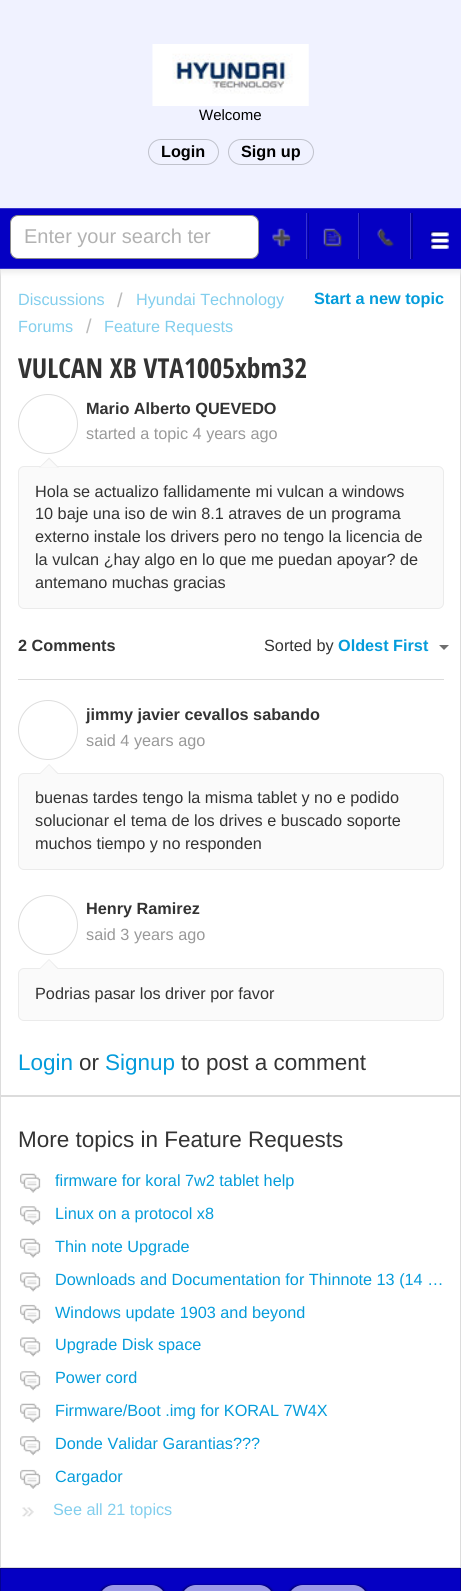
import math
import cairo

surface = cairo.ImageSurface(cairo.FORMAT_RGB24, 461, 1591)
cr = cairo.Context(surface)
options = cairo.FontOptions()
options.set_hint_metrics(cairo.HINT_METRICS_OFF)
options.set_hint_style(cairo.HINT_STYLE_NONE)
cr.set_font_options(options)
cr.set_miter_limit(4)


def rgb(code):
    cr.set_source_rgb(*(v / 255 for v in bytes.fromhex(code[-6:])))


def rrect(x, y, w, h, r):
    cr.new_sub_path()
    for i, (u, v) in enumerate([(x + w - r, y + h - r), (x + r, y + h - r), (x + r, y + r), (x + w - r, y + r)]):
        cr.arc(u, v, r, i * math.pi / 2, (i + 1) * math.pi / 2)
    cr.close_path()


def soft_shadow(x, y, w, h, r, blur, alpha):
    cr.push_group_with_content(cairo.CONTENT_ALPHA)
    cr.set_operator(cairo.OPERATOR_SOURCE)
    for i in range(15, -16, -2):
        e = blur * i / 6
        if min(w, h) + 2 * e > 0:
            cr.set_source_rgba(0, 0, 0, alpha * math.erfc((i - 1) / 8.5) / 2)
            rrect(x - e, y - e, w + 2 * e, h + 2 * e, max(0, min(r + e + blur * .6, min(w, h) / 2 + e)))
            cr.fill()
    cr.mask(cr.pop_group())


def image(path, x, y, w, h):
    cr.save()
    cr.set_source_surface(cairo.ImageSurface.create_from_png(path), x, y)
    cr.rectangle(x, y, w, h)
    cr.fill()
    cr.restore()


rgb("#f0f2ff")
cr.paint()
image("img/1.png", 152, 44, 157, 62)
rrect(148.5, 139.5, 70, 25, 12.5)
rgb("#c0c2cc")
cr.set_line_width(1)
cr.stroke()
rrect(228.5, 139.5, 85, 25, 12.5)
cr.stroke()
rgb("#ffffff")
cr.rectangle(0.5, 269.5, 460, 826)
cr.fill_preserve()
rgb("#dcdcdc")
cr.stroke()
rgb("#eeeeee")
soft_shadow(0, 211, 461, 62, 0, 2.5, 1)
for x, y, w, h, color in [
    (0, 209, 461, 59, "#0500c3"),
    (0, 208, 461, 1, "#3733cf"),
    (0, 268, 461, 1, "#3733cf"),
]:
    rgb(color)
    cr.rectangle(x, y, w, h)
    cr.fill()
image("img/2.png", 430, 231, 19, 18)
rgb("#ffffff")
rrect(10.5, 215.5, 248, 43, 7.5)
cr.fill_preserve()
rgb("#8c8c8c")
cr.stroke()
rgb("#04009c")
cr.new_path()
cr.move_to(258, 259)
cr.line_to(309, 259)
cr.line_to(309, 213)
cr.line_to(308, 213)
cr.line_to(308, 259)
cr.close_path()
cr.fill()
rgb("#3733cf")
cr.rectangle(306, 213, 1, 46)
cr.fill()
image("img/3.png", 272, 228, 19, 19)
rgb("#04009c")
cr.new_path()
cr.move_to(309, 259)
cr.line_to(360, 259)
cr.line_to(360, 213)
cr.line_to(359, 213)
cr.line_to(359, 259)
cr.close_path()
cr.fill()
rgb("#3733cf")
cr.rectangle(358, 213, 1, 46)
cr.fill()
image("img/4.png", 323, 228, 19, 19)
rgb("#04009c")
cr.new_path()
cr.move_to(360, 259)
cr.line_to(413, 259)
cr.line_to(413, 213)
cr.line_to(411, 213)
cr.line_to(411, 259)
cr.close_path()
cr.fill()
rgb("#3733cf")
cr.rectangle(410, 213, 1, 46)
cr.fill()
image("img/5.png", 377, 228, 17, 19)
cr.arc(48, 424, 29.5, 0, 2 * math.pi)
rgb("#dddddd")
cr.stroke()
rgb("#fafafa")
rrect(18.5, 466.5, 425, 142, 5.5)
cr.fill_preserve()
rgb("#ebebeb")
cr.stroke()
cr.new_path()
cr.move_to(59, 467.5)
cr.line_to(39, 467.5)
cr.line_to(49, 457.5)
cr.close_path()
cr.fill()
rgb("#fafafa")
cr.new_path()
cr.move_to(57.5, 467.5)
cr.line_to(40, 467.5)
cr.line_to(49, 459)
cr.close_path()
cr.fill()
rgb("#6f6f6f")
cr.new_path()
cr.move_to(439, 645)
cr.line_to(449, 645)
cr.line_to(444, 650)
cr.close_path()
cr.fill()
rgb("#dcdcdc")
cr.rectangle(18, 679, 426, 1)
cr.fill()
cr.arc(48, 730, 29.5, 0, 2 * math.pi)
rgb("#dddddd")
cr.stroke()
rgb("#fafafa")
rrect(18.5, 773.5, 425, 96, 5.5)
cr.fill_preserve()
rgb("#ebebeb")
cr.stroke()
cr.new_path()
cr.move_to(59, 774)
cr.line_to(39, 774)
cr.line_to(49, 764)
cr.close_path()
cr.fill()
rgb("#fafafa")
cr.new_path()
cr.move_to(57.5, 774)
cr.line_to(40, 774)
cr.line_to(49, 765)
cr.close_path()
cr.fill()
cr.arc(48, 925, 29.5, 0, 2 * math.pi)
rgb("#dddddd")
cr.stroke()
rgb("#fafafa")
rrect(18.5, 968.5, 425, 52, 5.5)
cr.fill_preserve()
rgb("#ebebeb")
cr.stroke()
cr.new_path()
cr.move_to(59, 969)
cr.line_to(39, 969)
cr.line_to(49, 959)
cr.close_path()
cr.fill()
rgb("#fafafa")
cr.new_path()
cr.move_to(57.5, 969)
cr.line_to(40, 969)
cr.line_to(49, 960)
cr.close_path()
cr.fill()
rgb("#ffffff")
cr.rectangle(0.5, 1096.5, 460, 471)
cr.fill_preserve()
rgb("#dcdcdc")
cr.stroke()
image("img/6.png", 20, 1173, 21, 20)
image("img/7.png", 20, 1206, 21, 20)
image("img/8.png", 20, 1238, 21, 20)
image("img/9.png", 20, 1272, 21, 20)
image("img/10.png", 20, 1304, 21, 20)
image("img/9.png", 20, 1337, 21, 20)
image("img/7.png", 20, 1371, 21, 20)
image("img/8.png", 20, 1403, 21, 20)
image("img/7.png", 20, 1436, 21, 20)
image("img/10.png", 20, 1469, 21, 20)
image("img/11.png", 22, 1507, 12, 10)
rgb("#0500c3")
cr.rectangle(0.5, 1568.5, 460, 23)
cr.fill_preserve()
rgb("#040090")
cr.stroke()
rgb("#030067")
soft_shadow(99, 1585, 67, 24, 15, 1, 1)
rgb("#9b99e7")
rrect(99, 1585, 67, 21, 15)
cr.fill()
rgb("#030067")
soft_shadow(181, 1585, 93, 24, 15, 1, 1)
rgb("#9b99e7")
rrect(181, 1585, 93, 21, 15)
cr.fill()
rgb("#030067")
soft_shadow(288, 1585, 80, 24, 15, 1, 1)
rgb("#9b99e7")
rrect(288, 1585, 80, 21, 15)
cr.fill()
cr.select_font_face("Liberation Sans")
cr.set_font_size(15)
rgb("#000000")
cr.move_to(199, 120)
cr.show_text("Welcome")
cr.select_font_face("Liberation Sans", cairo.FONT_SLANT_NORMAL, cairo.FONT_WEIGHT_BOLD)
cr.set_font_size(16.25)
cr.move_to(161, 157)
cr.show_text("Login")
cr.move_to(241, 157)
cr.show_text("Sign up")
cr.select_font_face("Liberation Sans")
cr.set_font_size(20)
rgb("#b2b2b2")
cr.move_to(24, 243)
cr.show_text("Enter your search ter")
cr.set_font_size(16.25)
rgb("#82ceed")
cr.move_to(18, 305)
cr.show_text("Discussions")
cr.set_font_size(20)
rgb("#bbbbbb")
cr.move_to(117, 307)
cr.show_text("/")
cr.set_font_size(16.25)
rgb("#82ceed")
cr.move_to(136, 305)
cr.show_text("Hyundai Technology")
cr.move_to(18, 332)
cr.show_text("Forums")
cr.set_font_size(20)
rgb("#bbbbbb")
cr.move_to(86, 333)
cr.show_text("/")
cr.set_font_size(16.25)
rgb("#82ceed")
cr.move_to(104, 332)
cr.show_text("Feature Requests")
cr.select_font_face("Liberation Sans", cairo.FONT_SLANT_NORMAL, cairo.FONT_WEIGHT_BOLD)
rgb("#049cdb")
cr.move_to(314, 304)
cr.show_text("Start a new topic")
cr.select_font_face("Open Sans Condensed", cairo.FONT_SLANT_NORMAL, cairo.FONT_WEIGHT_BOLD)
cr.set_font_size(27.5)
rgb("#333333")
cr.move_to(18, 378)
cr.show_text("VULCAN XB VTA1005xbm32")
cr.select_font_face("Liberation Sans", cairo.FONT_SLANT_NORMAL, cairo.FONT_WEIGHT_BOLD)
cr.set_font_size(16.25)
cr.move_to(86, 414)
cr.show_text("Mario Alberto QUEVEDO")
cr.select_font_face("Liberation Sans")
rgb("#999999")
cr.move_to(86, 439)
cr.show_text("started a topic 4 years ago")
rgb("#333333")
for x, y, s in [
    (35, 497, "Hola se actualizo fallidamente mi vulcan a windows"),
    (35, 519, "10 baje una iso de win 8.1 atraves de un programa"),
    (35, 542, "externo instale los drivers pero no tengo la licencia de"),
    (35, 565, "la vulcan ¿hay algo en lo que me puedan apoyar? de"),
    (35, 588, "antemano muchas gracias"),
]:
    cr.move_to(x, y)
    cr.show_text(s)
cr.select_font_face("Liberation Sans", cairo.FONT_SLANT_NORMAL, cairo.FONT_WEIGHT_BOLD)
cr.move_to(18, 651)
cr.show_text("2 Comments")
cr.select_font_face("Liberation Sans")
cr.move_to(264, 651)
cr.show_text("Sorted by")
cr.select_font_face("Liberation Sans", cairo.FONT_SLANT_NORMAL, cairo.FONT_WEIGHT_BOLD)
rgb("#049cdb")
cr.move_to(338, 651)
cr.show_text("Oldest First")
rgb("#333333")
cr.move_to(86, 720)
cr.show_text("jimmy javier cevallos sabando")
cr.select_font_face("Liberation Sans")
rgb("#999999")
cr.move_to(86, 746)
cr.show_text("said 4 years ago")
rgb("#333333")
for x, y, s in [
    (35, 803, "buenas tardes tengo la misma tablet y no e podido"),
    (35, 826, "solucionar el tema de los drives e buscado soporte"),
    (35, 849, "muchos tiempo y no responden"),
]:
    cr.move_to(x, y)
    cr.show_text(s)
cr.select_font_face("Liberation Sans", cairo.FONT_SLANT_NORMAL, cairo.FONT_WEIGHT_BOLD)
cr.move_to(86, 914)
cr.show_text("Henry Ramirez")
cr.select_font_face("Liberation Sans")
rgb("#999999")
cr.move_to(86, 940)
cr.show_text("said 3 years ago")
rgb("#333333")
cr.move_to(35, 999)
cr.show_text("Podrias pasar los driver por favor")
cr.set_font_size(22.5)
rgb("#049cdb")
cr.move_to(18, 1070)
cr.show_text("Login")
rgb("#333333")
cr.move_to(79, 1070)
cr.show_text("or")
rgb("#049cdb")
cr.move_to(105, 1070)
cr.show_text("Signup")
rgb("#333333")
cr.move_to(181, 1070)
cr.show_text("to post a comment")
cr.move_to(18, 1147)
cr.show_text("More topics in Feature Requests")
cr.set_font_size(16.25)
rgb("#049cdb")
for x, y, s in [
    (55, 1186, "firmware for koral 7w2 tablet help"),
    (55, 1219, "Linux on a protocol x8"),
    (55, 1252, "Thin note Upgrade"),
    (55, 1285, "Downloads and Documentation for Thinnote 13 (14 …"),
    (55, 1318, "Windows update 1903 and beyond"),
    (55, 1350, "Upgrade Disk space"),
    (55, 1383, "Power cord"),
    (55, 1416, "Firmware/Boot .img for KORAL 7W4X"),
    (55, 1449, "Donde Validar Garantias???"),
    (55, 1482, "Cargador"),
]:
    cr.move_to(x, y)
    cr.show_text(s)
rgb("#82ceed")
cr.move_to(53, 1515)
cr.show_text("See all 21 topics")
surface.write_to_png("page.png")
